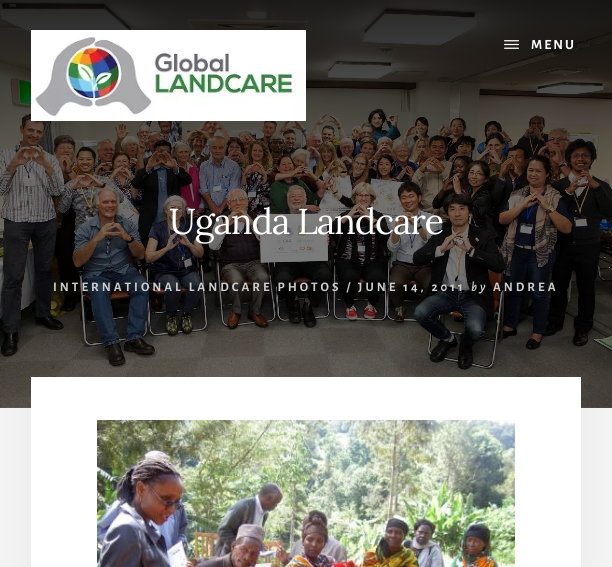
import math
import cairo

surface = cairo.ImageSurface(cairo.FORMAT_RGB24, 612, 567)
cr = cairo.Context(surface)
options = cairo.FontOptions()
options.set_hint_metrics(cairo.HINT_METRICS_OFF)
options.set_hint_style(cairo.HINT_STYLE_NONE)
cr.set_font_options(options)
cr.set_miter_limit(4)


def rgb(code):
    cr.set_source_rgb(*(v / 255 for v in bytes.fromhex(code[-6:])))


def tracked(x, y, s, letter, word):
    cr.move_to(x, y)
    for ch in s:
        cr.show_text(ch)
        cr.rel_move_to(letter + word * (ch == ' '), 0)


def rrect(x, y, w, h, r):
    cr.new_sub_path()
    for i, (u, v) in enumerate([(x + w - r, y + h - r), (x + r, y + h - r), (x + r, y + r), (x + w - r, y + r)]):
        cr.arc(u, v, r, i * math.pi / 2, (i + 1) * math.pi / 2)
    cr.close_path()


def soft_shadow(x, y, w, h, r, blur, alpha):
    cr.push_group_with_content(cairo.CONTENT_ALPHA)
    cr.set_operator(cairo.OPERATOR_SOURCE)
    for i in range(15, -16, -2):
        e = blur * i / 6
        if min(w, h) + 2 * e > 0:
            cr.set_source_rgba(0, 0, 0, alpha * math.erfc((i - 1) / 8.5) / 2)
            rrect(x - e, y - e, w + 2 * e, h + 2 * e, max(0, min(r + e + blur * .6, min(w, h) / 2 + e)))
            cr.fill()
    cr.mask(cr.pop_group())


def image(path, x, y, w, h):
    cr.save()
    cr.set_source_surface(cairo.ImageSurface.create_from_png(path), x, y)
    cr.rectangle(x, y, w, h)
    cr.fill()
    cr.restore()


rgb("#f4f4f4")
cr.paint()
image("img/1.png", 0, 0, 612, 408)
image("img/2.png", 31, 30, 275, 91)
image("img/3.png", 504, 40, 15, 9)
rgb("#000000")
soft_shadow(31, 402, 550, 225, 0, 20, 0.05)
rgb("#ffffff")
cr.rectangle(31, 377, 550, 190)
cr.fill()
image("img/4.png", 97, 420, 418, 147)
cr.select_font_face("Alegreya Sans", cairo.FONT_SLANT_NORMAL, cairo.FONT_WEIGHT_BOLD)
cr.set_font_size(14)
tracked(531, 49, "MENU", 2, 0)
cr.select_font_face("Lora")
cr.set_font_size(36)
tracked(169, 234, "Uganda Landcare", -1.25, 0)
cr.select_font_face("Alegreya Sans", cairo.FONT_SLANT_NORMAL, cairo.FONT_WEIGHT_BOLD)
cr.set_font_size(13)
rgb("#cccccc")
tracked(53, 291, "INTERNATIONAL LANDCARE PHOTOS / JUNE 14, 2011", 3, 0)
cr.select_font_face("Alegreya Sans", cairo.FONT_SLANT_ITALIC, cairo.FONT_WEIGHT_BOLD)
tracked(471, 291, "by", 3, 0)
cr.select_font_face("Alegreya Sans", cairo.FONT_SLANT_NORMAL, cairo.FONT_WEIGHT_BOLD)
tracked(493, 291, "ANDREA", 3, 0)
surface.write_to_png("page.png")
